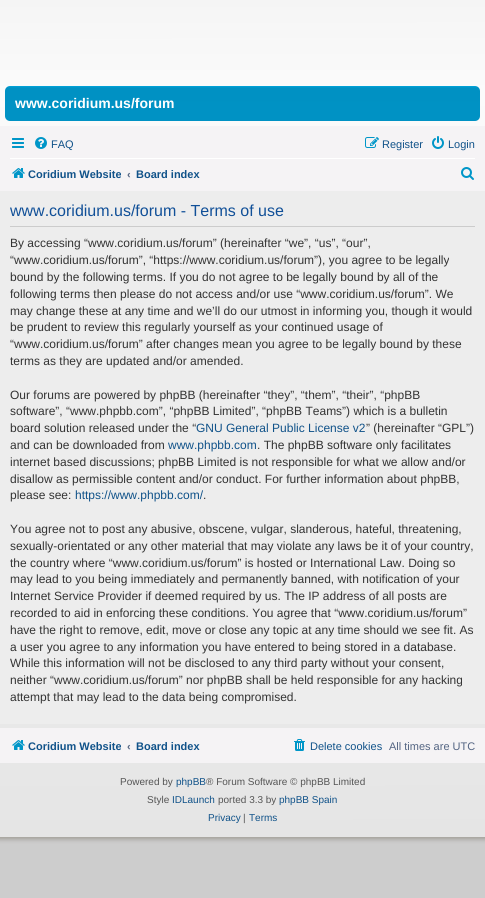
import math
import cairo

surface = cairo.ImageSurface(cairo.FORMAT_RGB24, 485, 898)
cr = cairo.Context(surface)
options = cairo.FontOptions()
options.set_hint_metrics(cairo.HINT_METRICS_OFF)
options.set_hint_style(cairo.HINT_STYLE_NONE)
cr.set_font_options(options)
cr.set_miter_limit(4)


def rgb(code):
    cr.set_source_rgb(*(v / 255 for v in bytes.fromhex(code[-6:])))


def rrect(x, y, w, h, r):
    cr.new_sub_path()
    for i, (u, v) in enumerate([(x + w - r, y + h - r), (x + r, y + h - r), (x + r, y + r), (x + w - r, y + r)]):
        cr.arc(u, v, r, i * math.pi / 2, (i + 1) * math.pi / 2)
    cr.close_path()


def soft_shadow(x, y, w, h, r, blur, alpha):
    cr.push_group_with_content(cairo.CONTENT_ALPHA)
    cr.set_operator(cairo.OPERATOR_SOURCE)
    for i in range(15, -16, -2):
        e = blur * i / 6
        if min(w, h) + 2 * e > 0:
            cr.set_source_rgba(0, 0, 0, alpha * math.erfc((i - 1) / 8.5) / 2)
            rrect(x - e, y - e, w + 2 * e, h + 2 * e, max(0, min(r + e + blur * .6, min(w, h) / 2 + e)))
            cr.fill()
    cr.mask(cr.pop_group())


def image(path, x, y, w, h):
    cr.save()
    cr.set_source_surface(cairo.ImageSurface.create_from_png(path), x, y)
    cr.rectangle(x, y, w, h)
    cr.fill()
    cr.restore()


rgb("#cdcdcd")
cr.paint()
rgb("#9d9a93")
soft_shadow(-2, -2, 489, 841, 0, 2.5, 1)
gradient = cairo.LinearGradient(242, 0, 243, 837)
gradient.add_color_stop_rgba(0, 0.816, 0.816, 0.816, 1)
gradient.add_color_stop_rgba(0, 0.961, 0.961, 0.961, 1)
gradient.add_color_stop_rgba(0.11, 0.984, 0.984, 0.984, 1)
gradient.add_color_stop_rgba(1, 0.898, 0.898, 0.898, 1)
cr.set_source(gradient)
cr.rectangle(0, 0, 485, 837)
cr.fill()
gradient = cairo.LinearGradient(243, 86, 243, 178)
gradient.add_color_stop_rgba(0, 0.004, 0.651, 0.863, 1)
gradient.add_color_stop_rgba(0.02, 0, 0.569, 0.765, 1)
gradient.add_color_stop_rgba(1, 0, 0.58, 0.776, 1)
gradient.add_color_stop_rgba(1, 0.004, 0.651, 0.863, 1)
cr.set_source(gradient)
rrect(5, 86, 475, 35, 5)
cr.fill()
rgb("#f5f3f5")
cr.rectangle(0, 126, 485, 65)
cr.fill()
image("img/1.png", 12, 138, 12, 10)
image("img/2.png", 35, 137, 12, 12)
image("img/3.png", 365, 137, 14, 11)
image("img/4.png", 432, 136, 12, 13)
rgb("#ffffff")
cr.rectangle(10, 158, 465, 1)
cr.fill()
image("img/5.png", 12, 168, 13, 10)
image("img/6.png", 461, 167, 13, 13)
for x, y, w, h, color in [
    (0, 191, 485, 533, "#ededed"),
    (10, 226, 465, 1, "#cccccc"),
    (0, 728, 485, 35, "#f5f3f5"),
]:
    rgb(color)
    cr.rectangle(x, y, w, h)
    cr.fill()
image("img/5.png", 12, 740, 13, 10)
image("img/7.png", 294, 739, 11, 12)
cr.select_font_face("Liberation Sans", cairo.FONT_SLANT_NORMAL, cairo.FONT_WEIGHT_BOLD)
cr.set_font_size(14)
rgb("#ffffff")
cr.move_to(15, 108)
cr.show_text("www.coridium.us/forum")
cr.select_font_face("Liberation Sans")
cr.set_font_size(11)
rgb("#105289")
for x, y, s in [
    (51, 148, "FAQ"),
    (382, 148, "Register"),
    (448, 148, "Login"),
]:
    cr.move_to(x, y)
    cr.show_text(s)
cr.select_font_face("Liberation Sans", cairo.FONT_SLANT_NORMAL, cairo.FONT_WEIGHT_BOLD)
cr.move_to(28, 178)
cr.show_text("Coridium Website")
rgb("#536482")
cr.move_to(127, 178)
cr.show_text("‹")
rgb("#105289")
cr.move_to(136, 178)
cr.show_text("Board index")
cr.select_font_face("Liberation Sans")
cr.set_font_size(16)
rgb("#115098")
cr.move_to(10, 216)
cr.show_text("www.coridium.us/forum - Terms of use")
cr.set_font_size(12)
rgb("#333333")
for x, y, s in [
    (10, 247, "By accessing “www.coridium.us/forum” (hereinafter “we”, “us”, “our”,"),
    (10, 264, "“www.coridium.us/forum”, “https://www.coridium.us/forum”), you agree to be legally"),
    (10, 281, "bound by the following terms. If you do not agree to be legally bound by all of the"),
    (10, 298, "following terms then please do not access and/or use “www.coridium.us/forum”. We"),
    (10, 315, "may change these at any time and we’ll do our utmost in informing you, though it would"),
    (10, 331, "be prudent to review this regularly yourself as your continued usage of"),
    (10, 348, "“www.coridium.us/forum” after changes mean you agree to be legally bound by these"),
    (10, 365, "terms as they are updated and/or amended."),
    (10, 399, "Our forums are powered by phpBB (hereinafter “they”, “them”, “their”, “phpBB"),
    (10, 415, "software”, “www.phpbb.com”, “phpBB Limited”, “phpBB Teams”) which is a bulletin"),
    (10, 432, "board solution released under the “"),
]:
    cr.move_to(x, y)
    cr.show_text(s)
rgb("#105289")
cr.move_to(196, 432)
cr.show_text("GNU General Public License v2")
rgb("#333333")
cr.move_to(366, 432)
cr.show_text("” (hereinafter “GPL”)")
cr.move_to(10, 449)
cr.show_text("and can be downloaded from")
rgb("#105289")
cr.move_to(168, 449)
cr.show_text("www.phpbb.com")
rgb("#333333")
for x, y, s in [
    (257, 449, ". The phpBB software only facilitates"),
    (10, 466, "internet based discussions; phpBB Limited is not responsible for what we allow and/or"),
    (10, 483, "disallow as permissible content and/or conduct. For further information about phpBB,"),
    (10, 499, "please see:"),
]:
    cr.move_to(x, y)
    cr.show_text(s)
rgb("#105289")
cr.move_to(75, 499)
cr.show_text("https://www.phpbb.com/")
rgb("#333333")
for x, y, s in [
    (203, 499, "."),
    (10, 533, "You agree not to post any abusive, obscene, vulgar, slanderous, hateful, threatening,"),
    (10, 550, "sexually-orientated or any other material that may violate any laws be it of your country,"),
    (10, 567, "the country where “www.coridium.us/forum” is hosted or International Law. Doing so"),
    (10, 583, "may lead to you being immediately and permanently banned, with notification of your"),
    (10, 600, "Internet Service Provider if deemed required by us. The IP address of all posts are"),
    (10, 617, "recorded to aid in enforcing these conditions. You agree that “www.coridium.us/forum”"),
    (10, 634, "have the right to remove, edit, move or close any topic at any time should we see fit. As"),
    (10, 651, "a user you agree to any information you have entered to being stored in a database."),
    (10, 667, "While this information will not be disclosed to any third party without your consent,"),
    (10, 684, "neither “www.coridium.us/forum” nor phpBB shall be held responsible for any hacking"),
    (10, 701, "attempt that may lead to the data being compromised."),
]:
    cr.move_to(x, y)
    cr.show_text(s)
cr.select_font_face("Liberation Sans", cairo.FONT_SLANT_NORMAL, cairo.FONT_WEIGHT_BOLD)
cr.set_font_size(11)
rgb("#105289")
cr.move_to(28, 750)
cr.show_text("Coridium Website")
rgb("#536482")
cr.move_to(127, 750)
cr.show_text("‹")
rgb("#105289")
cr.move_to(136, 750)
cr.show_text("Board index")
cr.select_font_face("Liberation Sans")
cr.move_to(310, 750)
cr.show_text("Delete cookies")
rgb("#536482")
cr.move_to(389, 750)
cr.show_text("All times are UTC")
cr.set_font_size(10)
rgb("#555555")
cr.move_to(120, 785)
cr.show_text("Powered by")
rgb("#105289")
cr.move_to(176, 785)
cr.show_text("phpBB")
rgb("#555555")
cr.move_to(206, 785)
cr.show_text("® Forum Software © phpBB Limited")
cr.move_to(147, 803)
cr.show_text("Style")
rgb("#105289")
cr.move_to(172, 803)
cr.show_text("IDLaunch")
rgb("#555555")
cr.move_to(218, 803)
cr.show_text("ported 3.3 by")
rgb("#105289")
cr.move_to(279, 803)
cr.show_text("phpBB Spain")
cr.move_to(208, 821)
cr.show_text("Privacy")
rgb("#555555")
cr.move_to(243, 821)
cr.show_text("|")
rgb("#105289")
cr.move_to(249, 821)
cr.show_text("Terms")
surface.write_to_png("page.png")
